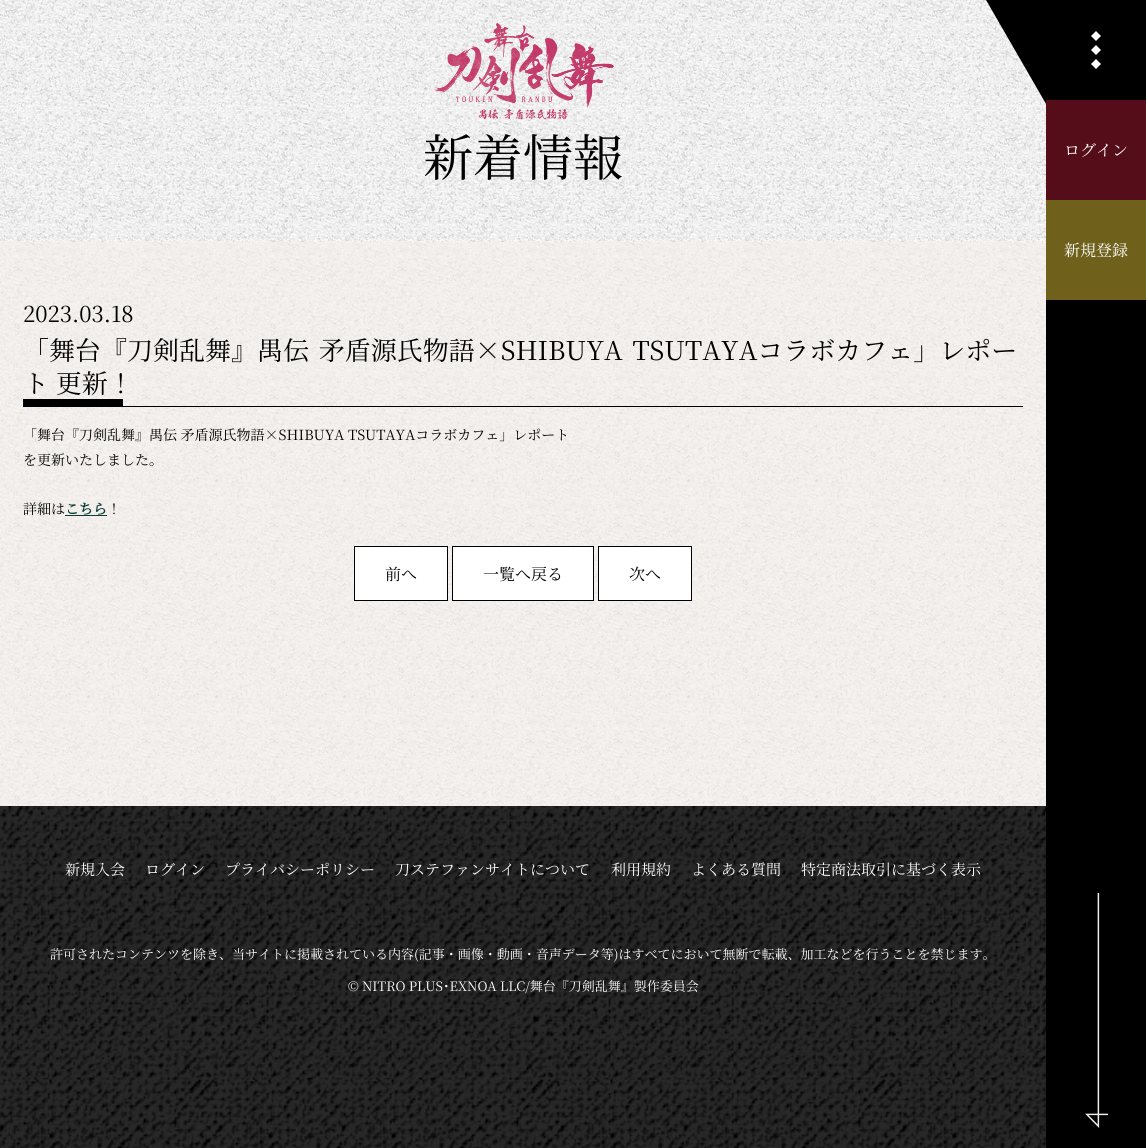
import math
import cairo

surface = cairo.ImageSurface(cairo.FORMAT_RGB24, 1146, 1148)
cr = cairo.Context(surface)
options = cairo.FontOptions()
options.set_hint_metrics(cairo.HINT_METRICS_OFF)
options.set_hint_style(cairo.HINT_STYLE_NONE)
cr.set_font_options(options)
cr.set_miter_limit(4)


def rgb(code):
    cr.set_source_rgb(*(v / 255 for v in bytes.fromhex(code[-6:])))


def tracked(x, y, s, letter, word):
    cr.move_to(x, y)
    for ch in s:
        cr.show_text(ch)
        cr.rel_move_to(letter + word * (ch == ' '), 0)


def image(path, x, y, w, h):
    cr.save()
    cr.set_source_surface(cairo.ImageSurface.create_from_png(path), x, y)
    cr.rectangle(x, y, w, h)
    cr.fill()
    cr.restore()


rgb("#ffffff")
cr.paint()
image("img/1.png", 0, 242, 1046, 564)
image("img/2.png", 0, 0, 1046, 242)
image("img/3.png", 433, 23, 181, 97)
for x, y, w, h, color in [
    (23, 406, 1000, 1, "#000000"),
    (23, 399, 100, 7, "#000000"),
    (65, 515, 42, 1, "#0a3d34"),
]:
    rgb(color)
    cr.rectangle(x, y, w, h)
    cr.fill()
rgb("#ffffff")
cr.rectangle(354.5, 546.5, 93, 54)
cr.fill_preserve()
rgb("#000000")
cr.set_line_width(1)
cr.stroke()
rgb("#ffffff")
cr.rectangle(452.5, 546.5, 141, 54)
cr.fill_preserve()
rgb("#000000")
cr.stroke()
rgb("#ffffff")
cr.rectangle(598.5, 546.5, 93, 54)
cr.fill_preserve()
rgb("#000000")
cr.stroke()
image("img/4.png", 0, 806, 1046, 342)
cr.new_path()
cr.move_to(986, 0)
cr.line_to(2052, 0)
cr.line_to(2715, 1148)
cr.line_to(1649, 1148)
cr.close_path()
cr.fill()
cr.rectangle(1046, 104, 100, 1044)
cr.fill()
image("img/5.png", 1091, 31, 10, 38)
rgb("#560d1a")
cr.rectangle(1046, 100, 100, 100)
cr.fill()
rgb("#6f601b")
cr.rectangle(1046, 200, 100, 100)
cr.fill()
image("img/6.png", 1085, 893, 23, 235)
cr.select_font_face("Noto Serif JP ExtraLight")
cr.set_font_size(50)
rgb("#000000")
cr.move_to(423, 176)
cr.show_text("新着情報")
cr.set_font_size(22)
cr.move_to(23, 322)
cr.show_text("2023.03.18")
cr.set_font_size(26)
tracked(23, 360, "「舞台『刀剣乱舞』禺伝 矛盾源氏物語×SHIBUYA TSUTAYAコラボカフェ」レポー", 0, 3)
cr.move_to(23, 393)
cr.show_text("ト 更新！")
cr.set_font_size(14)
for x, y, s in [
    (23, 440, "「舞台『刀剣乱舞』禺伝 矛盾源氏物語×SHIBUYA TSUTAYAコラボカフェ」レポート"),
    (23, 465, "を更新いたしました。"),
    (23, 514, "詳細は"),
]:
    cr.move_to(x, y)
    cr.show_text(s)
cr.select_font_face("Noto Serif JP", cairo.FONT_SLANT_NORMAL, cairo.FONT_WEIGHT_BOLD)
rgb("#0a3d34")
cr.move_to(65, 514)
cr.show_text("こちら")
cr.select_font_face("Noto Serif JP ExtraLight")
rgb("#000000")
cr.move_to(107, 514)
cr.show_text("！")
cr.set_font_size(16)
for x, y, s in [
    (385, 580, "前へ"),
    (483, 580, "一覧へ戻る"),
    (629, 580, "次へ"),
]:
    cr.move_to(x, y)
    cr.show_text(s)
cr.set_font_size(15)
rgb("#ffffff")
for x, y, s in [
    (65, 875, "新規入会"),
    (145, 875, "ログイン"),
    (225, 875, "プライバシーポリシー"),
    (395, 875, "刀ステファンサイトについて"),
    (611, 875, "利用規約"),
    (691, 875, "よくある質問"),
    (801, 875, "特定商法取引に基づく表示"),
]:
    cr.move_to(x, y)
    cr.show_text(s)
cr.set_font_size(13)
cr.move_to(50, 959)
cr.show_text("許可されたコンテンツを除き、当サイトに掲載されている内容(記事・画像・動画・音声データ等)はすべてにおいて無断で転載、加工などを行うことを禁じます。")
cr.move_to(348, 991)
cr.show_text("© NITRO PLUS･EXNOA LLC/舞台『刀剣乱舞』製作委員会")
cr.set_font_size(16)
cr.move_to(1064, 156)
cr.show_text("ログイン")
cr.move_to(1064, 256)
cr.show_text("新規登録")
surface.write_to_png("page.png")
